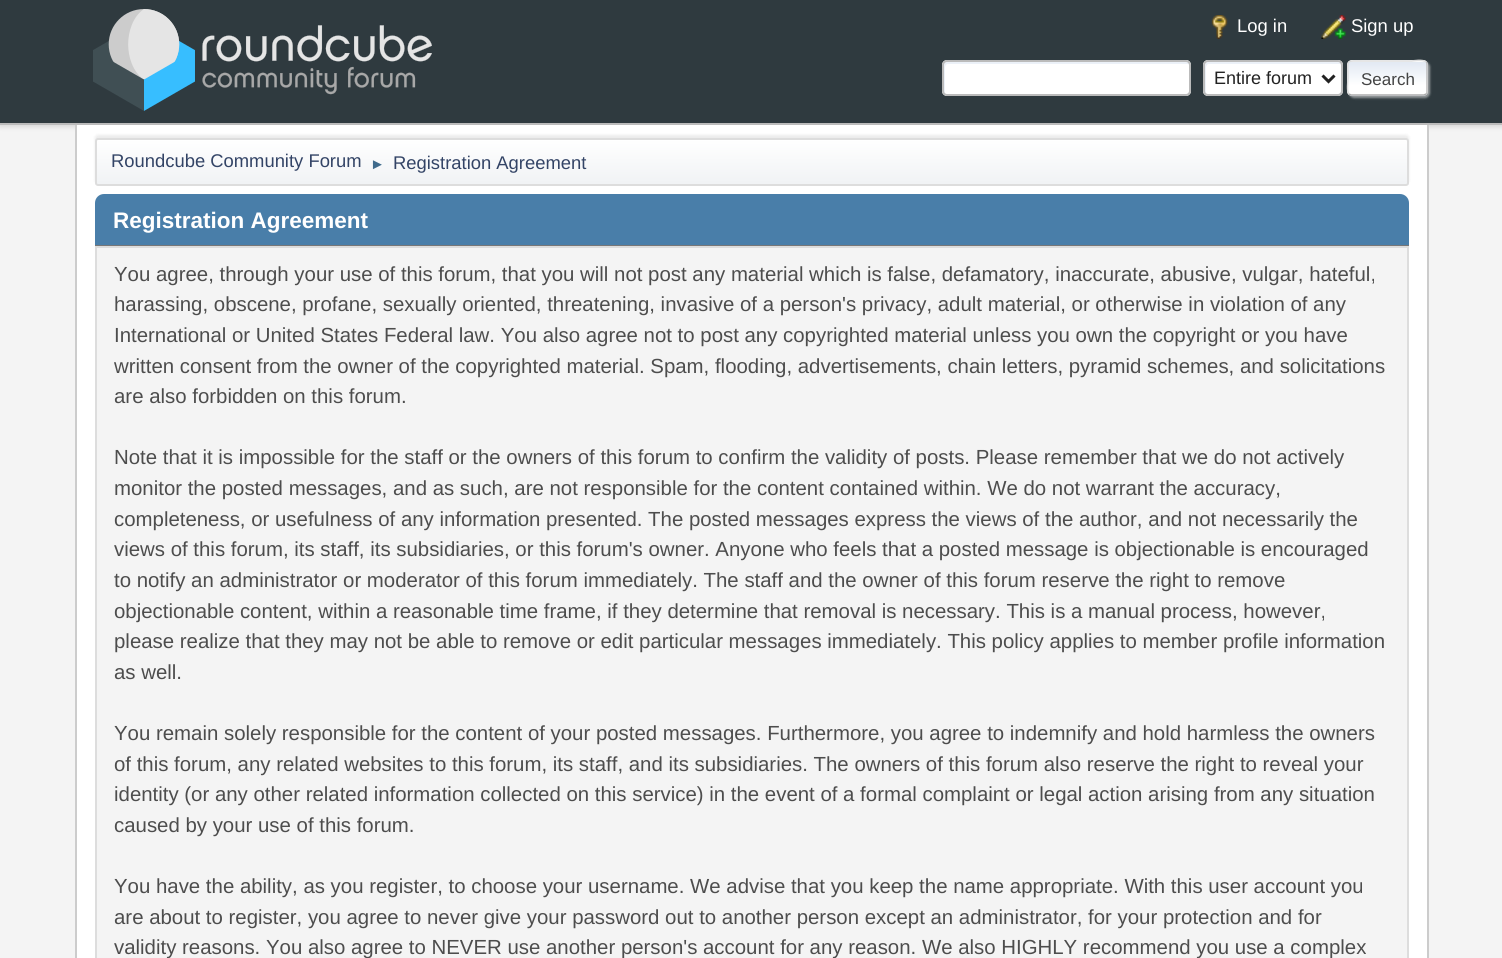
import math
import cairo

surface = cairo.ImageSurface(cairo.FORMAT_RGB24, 1502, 958)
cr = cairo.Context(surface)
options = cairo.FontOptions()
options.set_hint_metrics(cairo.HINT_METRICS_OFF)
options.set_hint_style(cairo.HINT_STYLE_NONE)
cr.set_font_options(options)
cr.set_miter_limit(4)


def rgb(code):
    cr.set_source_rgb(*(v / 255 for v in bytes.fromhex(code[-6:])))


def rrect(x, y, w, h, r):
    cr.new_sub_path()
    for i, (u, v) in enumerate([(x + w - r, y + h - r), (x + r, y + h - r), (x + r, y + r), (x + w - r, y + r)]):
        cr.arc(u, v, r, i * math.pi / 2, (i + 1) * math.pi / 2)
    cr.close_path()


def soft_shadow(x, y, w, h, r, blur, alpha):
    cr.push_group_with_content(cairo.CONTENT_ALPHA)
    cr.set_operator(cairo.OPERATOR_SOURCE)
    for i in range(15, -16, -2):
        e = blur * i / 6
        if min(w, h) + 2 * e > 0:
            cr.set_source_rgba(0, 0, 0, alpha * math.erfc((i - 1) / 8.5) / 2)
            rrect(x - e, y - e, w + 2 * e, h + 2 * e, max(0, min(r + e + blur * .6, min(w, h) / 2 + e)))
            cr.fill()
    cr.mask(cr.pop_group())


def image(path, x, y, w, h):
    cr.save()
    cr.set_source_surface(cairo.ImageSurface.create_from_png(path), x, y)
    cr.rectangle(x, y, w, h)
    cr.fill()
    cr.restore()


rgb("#f4f4f4")
cr.paint()
rgb("#000000")
soft_shadow(0, 2, 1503, 124, 0, 3, 0.16)
rgb("#2f3a3f")
cr.rectangle(0, 0, 1502, 123)
cr.fill()
rgb("#bbbbbb")
cr.rectangle(0, 123, 1502, 2)
cr.fill()
image("img/1.png", 93, 9, 339, 102)
image("img/2.png", 1211, 15, 17, 24)
image("img/3.png", 1321, 15, 25, 24)
rgb("#ffffff")
rrect(942, 60, 249, 36, 5)
cr.fill()
rgb("#ecf1f8")
cr.new_path()
cr.move_to(948, 64)
cr.line_to(1188, 64)
cr.line_to(1190, 65)
cr.curve_to(1190, 63, 1189, 62, 1187, 62)
cr.line_to(947, 62)
cr.curve_to(945, 62, 944, 63, 944, 65)
cr.line_to(944, 92)
cr.curve_to(944, 93, 944, 94, 945, 94)
cr.line_to(945, 72)
cr.curve_to(945, 70, 944, 64, 948, 64)
cr.close_path()
cr.fill()
rrect(943, 61, 247, 34, 4)
rgb("#bbbbbb")
cr.stroke()
rgb("#ffffff")
rrect(1203, 60, 140, 36, 5)
cr.fill()
rgb("#ecf1f8")
cr.new_path()
cr.move_to(1209, 64)
cr.line_to(1340, 64)
cr.line_to(1341, 65)
cr.curve_to(1341, 63, 1340, 62, 1338, 62)
cr.line_to(1208, 62)
cr.curve_to(1206, 62, 1205, 63, 1205, 65)
cr.line_to(1205, 92)
cr.curve_to(1205, 93, 1205, 94, 1206, 94)
cr.line_to(1206, 72)
cr.curve_to(1206, 70, 1205, 64, 1209, 64)
cr.close_path()
cr.fill()
rrect(1204, 61, 138, 34, 4)
rgb("#bbbbbb")
cr.stroke()
cr.new_path()
cr.move_to(1322.5, 75.5)
cr.line_to(1328.5, 81.5)
cr.line_to(1334.5, 75.5)
rgb("#222222")
cr.set_line_width(3)
cr.stroke()
rgb("#dddddd")
soft_shadow(1349, 62, 81, 36, 5, 1, 0.57)
cr.save()
rrect(1347, 60, 81, 36, 5)
cr.clip()
gradient = cairo.LinearGradient(1388, 28, 1388, 62)
gradient.add_color_stop_rgba(0, 0.886, 0.914, 0.953, 1)
gradient.add_color_stop_rgba(0.7, 1, 1, 1, 1)
cr.set_source(gradient)
cr.rectangle(1347, 60, 81, 2)
cr.fill()
gradient = cairo.LinearGradient(1388, 62, 1388, 95)
gradient.add_color_stop_rgba(0, 0.886, 0.914, 0.953, 1)
gradient.add_color_stop_rgba(0.7, 1, 1, 1, 1)
cr.set_source(gradient)
cr.rectangle(1347, 62, 81, 33)
cr.fill()
gradient = cairo.LinearGradient(1388, 95, 1388, 128)
gradient.add_color_stop_rgba(0, 0.886, 0.914, 0.953, 1)
gradient.add_color_stop_rgba(0.7, 1, 1, 1, 1)
cr.set_source(gradient)
cr.rectangle(1347, 95, 81, 1)
cr.fill()
cr.restore()
cr.new_path()
cr.move_to(1426, 62)
cr.curve_to(1427, 62.5, 1427, 63.5, 1427, 64.5)
cr.line_to(1427, 91.5)
cr.curve_to(1427, 92.5, 1427, 93.5, 1426, 94)
rgb("#bbbbbb")
cr.set_line_width(1.5)
cr.stroke()
cr.new_path()
cr.move_to(1426, 94)
cr.line_to(1424, 95)
cr.line_to(1351, 95)
cr.line_to(1349, 94)
rgb("#aaaaaa")
cr.stroke()
cr.new_path()
cr.move_to(1349, 94)
cr.curve_to(1346.5, 92, 1348, 81, 1348, 78)
cr.curve_to(1348, 59, 1344.5, 61, 1363.5, 61)
cr.line_to(1411.5, 61)
cr.curve_to(1412, 61, 1423.5, 59, 1426, 62)
rgb("#dddddd")
cr.stroke()
for x, y, w, h, color in [
    (77, 125, 1350, 833, "#ffffff"),
    (1427, 125, 2, 833, "#cccccc"),
    (75, 125, 2, 833, "#cccccc"),
]:
    rgb(color)
    cr.rectangle(x, y, w, h)
    cr.fill()
rgb("#000000")
soft_shadow(95, 135, 1314, 48, 3, 1.5, 0.08)
cr.save()
rrect(95, 138, 1314, 48, 3)
cr.clip()
gradient = cairo.LinearGradient(752, 139, 752, 185)
gradient.add_color_stop_rgba(0, 1, 1, 1, 1)
gradient.add_color_stop_rgba(0.95, 0.945, 0.953, 0.961, 1)
cr.set_source(gradient)
cr.rectangle(95, 140, 1314, 45)
cr.fill()
cr.restore()
rrect(96, 139, 1312, 46, 2)
rgb("#dddddd")
cr.set_line_width(2)
cr.stroke()
rgb("#497ea9")
cr.new_path()
cr.move_to(104, 194)
cr.line_to(1400, 194)
cr.curve_to(1405, 194, 1409, 198, 1409, 203)
cr.line_to(1409, 246)
cr.line_to(95, 246)
cr.line_to(95, 203)
cr.curve_to(95, 198, 99, 194, 104, 194)
cr.close_path()
cr.fill()
rgb("#777777")
cr.rectangle(95, 245, 1314, 1)
cr.fill()
rgb("#f4f4f4")
cr.rectangle(96, 247, 1312, 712)
cr.fill_preserve()
rgb("#dddddd")
cr.stroke()
cr.select_font_face("Liberation Sans")
cr.set_font_size(18.4)
rgb("#ffffff")
cr.move_to(1237, 32)
cr.show_text("Log in")
cr.move_to(1351, 32)
cr.show_text("Sign up")
cr.set_font_size(18)
rgb("#222222")
cr.move_to(1214, 84)
cr.show_text("Entire forum")
cr.set_font_size(17)
rgb("#444444")
cr.move_to(1361, 85)
cr.show_text("Search")
cr.set_font_size(18.4)
rgb("#334466")
cr.move_to(111, 167)
cr.show_text("Roundcube Community Forum")
cr.set_font_size(15)
rgb("#3f6b8c")
cr.move_to(370, 169)
cr.show_text("►")
cr.set_font_size(18.4)
rgb("#334466")
cr.move_to(393, 169)
cr.show_text("Registration Agreement")
cr.select_font_face("Liberation Sans", cairo.FONT_SLANT_NORMAL, cairo.FONT_WEIGHT_BOLD)
cr.set_font_size(22.5)
rgb("#ffffff")
cr.move_to(113, 228)
cr.show_text("Registration Agreement")
cr.select_font_face("Liberation Sans")
cr.set_font_size(20.4)
rgb("#4d4d4d")
for x, y, s in [
    (114, 281, "You agree, through your use of this forum, that you will not post any material which is false, defamatory, inaccurate, abusive, vulgar, hateful,"),
    (114, 311, "harassing, obscene, profane, sexually oriented, threatening, invasive of a person's privacy, adult material, or otherwise in violation of any"),
    (114, 342, "International or United States Federal law. You also agree not to post any copyrighted material unless you own the copyright or you have"),
    (114, 373, "written consent from the owner of the copyrighted material. Spam, flooding, advertisements, chain letters, pyramid schemes, and solicitations"),
    (114, 403, "are also forbidden on this forum."),
    (114, 464, "Note that it is impossible for the staff or the owners of this forum to confirm the validity of posts. Please remember that we do not actively"),
    (114, 495, "monitor the posted messages, and as such, are not responsible for the content contained within. We do not warrant the accuracy,"),
    (114, 526, "completeness, or usefulness of any information presented. The posted messages express the views of the author, and not necessarily the"),
    (114, 556, "views of this forum, its staff, its subsidiaries, or this forum's owner. Anyone who feels that a posted message is objectionable is encouraged"),
    (114, 587, "to notify an administrator or moderator of this forum immediately. The staff and the owner of this forum reserve the right to remove"),
    (114, 618, "objectionable content, within a reasonable time frame, if they determine that removal is necessary. This is a manual process, however,"),
    (114, 648, "please realize that they may not be able to remove or edit particular messages immediately. This policy applies to member profile information"),
    (114, 679, "as well."),
    (114, 740, "You remain solely responsible for the content of your posted messages. Furthermore, you agree to indemnify and hold harmless the owners"),
    (114, 771, "of this forum, any related websites to this forum, its staff, and its subsidiaries. The owners of this forum also reserve the right to reveal your"),
    (114, 801, "identity (or any other related information collected on this service) in the event of a formal complaint or legal action arising from any situation"),
    (114, 832, "caused by your use of this forum."),
    (114, 893, "You have the ability, as you register, to choose your username. We advise that you keep the name appropriate. With this user account you"),
    (114, 924, "are about to register, you agree to never give your password out to another person except an administrator, for your protection and for"),
    (114, 954, "validity reasons. You also agree to NEVER use another person's account for any reason. We also HIGHLY recommend you use a complex"),
]:
    cr.move_to(x, y)
    cr.show_text(s)
surface.write_to_png("page.png")
